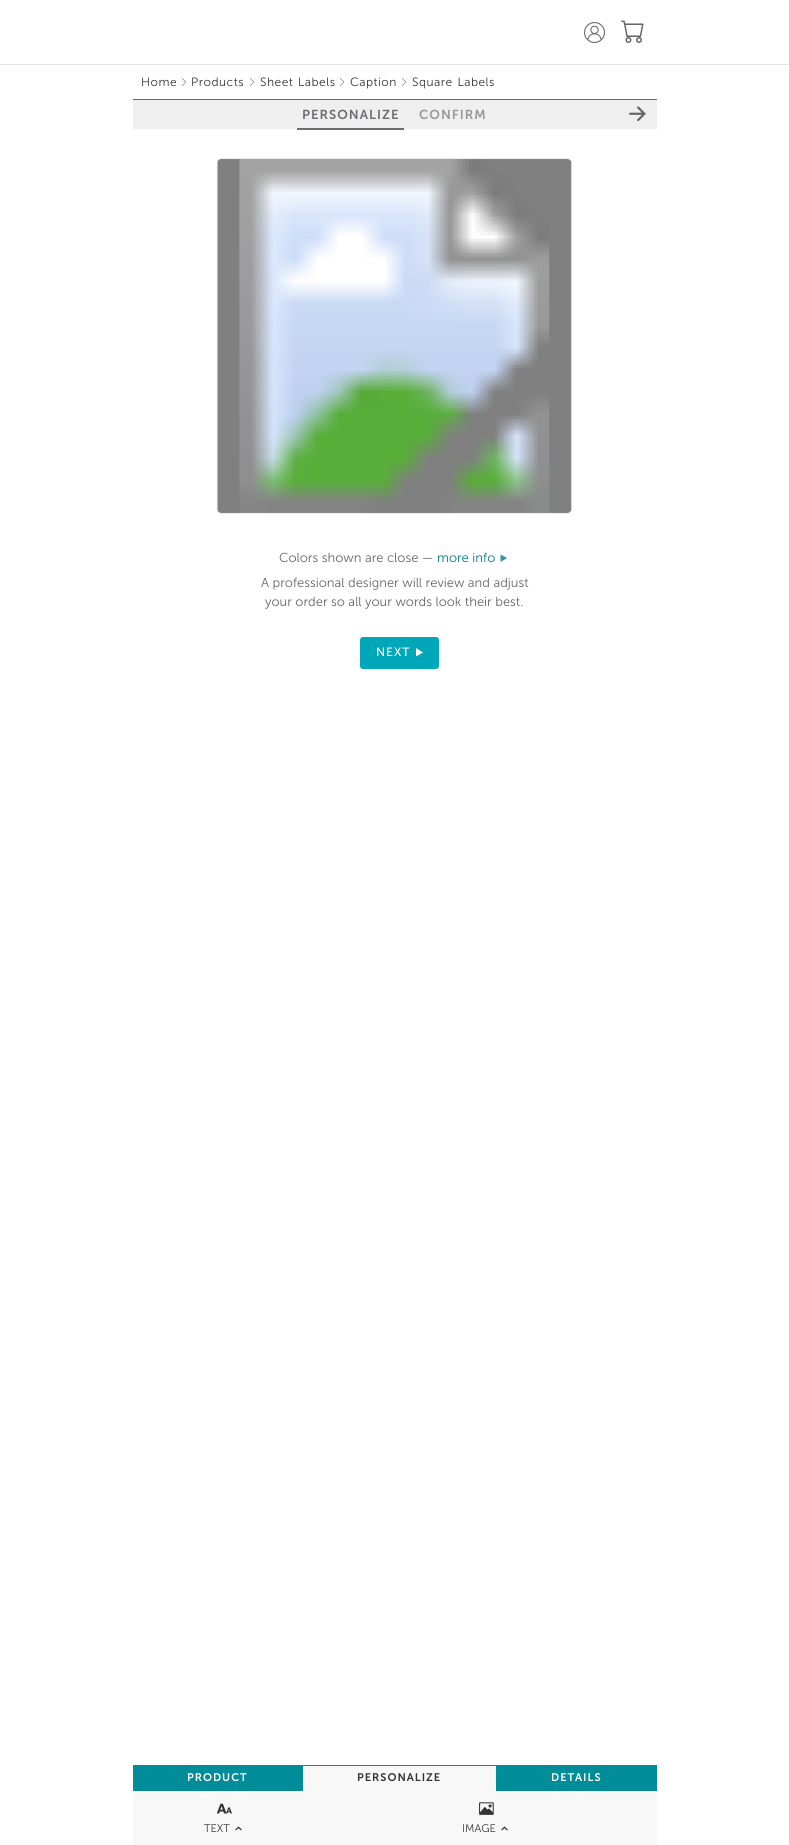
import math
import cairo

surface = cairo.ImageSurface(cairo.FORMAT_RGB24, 789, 1845)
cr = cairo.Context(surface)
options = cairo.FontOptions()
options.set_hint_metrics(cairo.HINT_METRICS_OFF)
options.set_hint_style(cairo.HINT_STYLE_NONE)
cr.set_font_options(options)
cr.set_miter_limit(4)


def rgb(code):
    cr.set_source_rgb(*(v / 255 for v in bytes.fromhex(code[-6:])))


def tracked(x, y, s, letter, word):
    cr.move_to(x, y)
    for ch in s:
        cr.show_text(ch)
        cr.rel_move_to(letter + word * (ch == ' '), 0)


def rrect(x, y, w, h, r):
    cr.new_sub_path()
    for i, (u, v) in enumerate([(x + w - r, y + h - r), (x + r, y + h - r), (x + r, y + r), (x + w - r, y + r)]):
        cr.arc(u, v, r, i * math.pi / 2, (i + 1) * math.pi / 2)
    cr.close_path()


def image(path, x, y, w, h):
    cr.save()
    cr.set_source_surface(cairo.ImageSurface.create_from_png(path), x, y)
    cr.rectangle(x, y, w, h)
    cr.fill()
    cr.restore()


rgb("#ffffff")
cr.paint()
rgb("#e6e6e6")
cr.rectangle(0, 64, 789, 1)
cr.fill()
image("img/1.png", 584, 22, 21, 21)
image("img/2.png", 621, 20, 23, 23)
rgb("#efefef")
cr.rectangle(133, 100, 524, 29)
cr.fill()
rgb("#666666")
cr.rectangle(133, 99, 524, 1)
cr.fill()
image("img/3.png", 181, 78, 6, 8)
image("img/3.png", 249, 78, 6, 8)
image("img/3.png", 339, 78, 6, 8)
image("img/3.png", 401, 78, 6, 8)
rgb("#6d6e71")
cr.rectangle(297, 128, 107, 2)
cr.fill()
image("img/4.png", 629, 106, 17, 16)
image("img/5.png", 216, 158, 356, 356)
rgb("#33959d")
cr.new_path()
cr.move_to(500.5, 554.5)
cr.line_to(507, 558)
cr.line_to(500.5, 562)
cr.close_path()
cr.fill()
rgb("#00a7b8")
rrect(360, 637, 79, 32, 3)
cr.fill()
rgb("#ffffff")
cr.new_path()
cr.move_to(416, 648)
cr.line_to(423, 652.5)
cr.line_to(416, 656.5)
cr.close_path()
cr.fill()
for x, y, w, h, color in [
    (133, 1791, 524, 54, "#f8f8f8"),
    (133, 1765, 524, 26, "#008c98"),
    (303, 1766, 193, 25, "#f8f8f8"),
]:
    rgb(color)
    cr.rectangle(x, y, w, h)
    cr.fill()
image("img/6.png", 216, 1803, 16, 11)
image("img/7.png", 235, 1826, 7, 5)
image("img/8.png", 479, 1802, 15, 13)
image("img/7.png", 501, 1826, 7, 5)
cr.select_font_face("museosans")
cr.set_font_size(12)
rgb("#333333")
tracked(141, 86, "Home", 0.5, 0)
tracked(191, 86, "Products", 0.5, 0)
tracked(260, 86, "Sheet Labels", 0.5, 1)
tracked(350, 86, "Caption", 0.5, 0)
tracked(412, 86, "Square Labels", 0.5, 1)
cr.select_font_face("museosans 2")
cr.set_font_size(13)
rgb("#6d6e71")
tracked(302, 119, "PERSONALIZE", 1, 0)
rgb("#999999")
tracked(419, 119, "CONFIRM", 1, 0)
cr.select_font_face("museosans")
rgb("#666666")
cr.move_to(279, 562)
cr.show_text("Colors shown are close —")
rgb("#007b85")
cr.move_to(437, 562)
cr.show_text("more info")
rgb("#666666")
cr.move_to(261, 587)
cr.show_text("A professional designer will review and adjust")
cr.move_to(265, 606)
cr.show_text("your order so all your words look their best.")
cr.select_font_face("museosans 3")
cr.set_font_size(12)
rgb("#ffffff")
tracked(376, 656, "NEXT", 1, 0)
cr.select_font_face("museosans 2")
cr.set_font_size(11)
tracked(187, 1781, "PRODUCT", 1, 0)
rgb("#333333")
tracked(357, 1781, "PERSONALIZE", 1, 0)
rgb("#ffffff")
tracked(551, 1781, "DETAILS", 1, 0)
cr.select_font_face("museosans")
rgb("#333333")
cr.move_to(204, 1832)
cr.show_text("TEXT")
cr.move_to(462, 1832)
cr.show_text("IMAGE")
surface.write_to_png("page.png")
